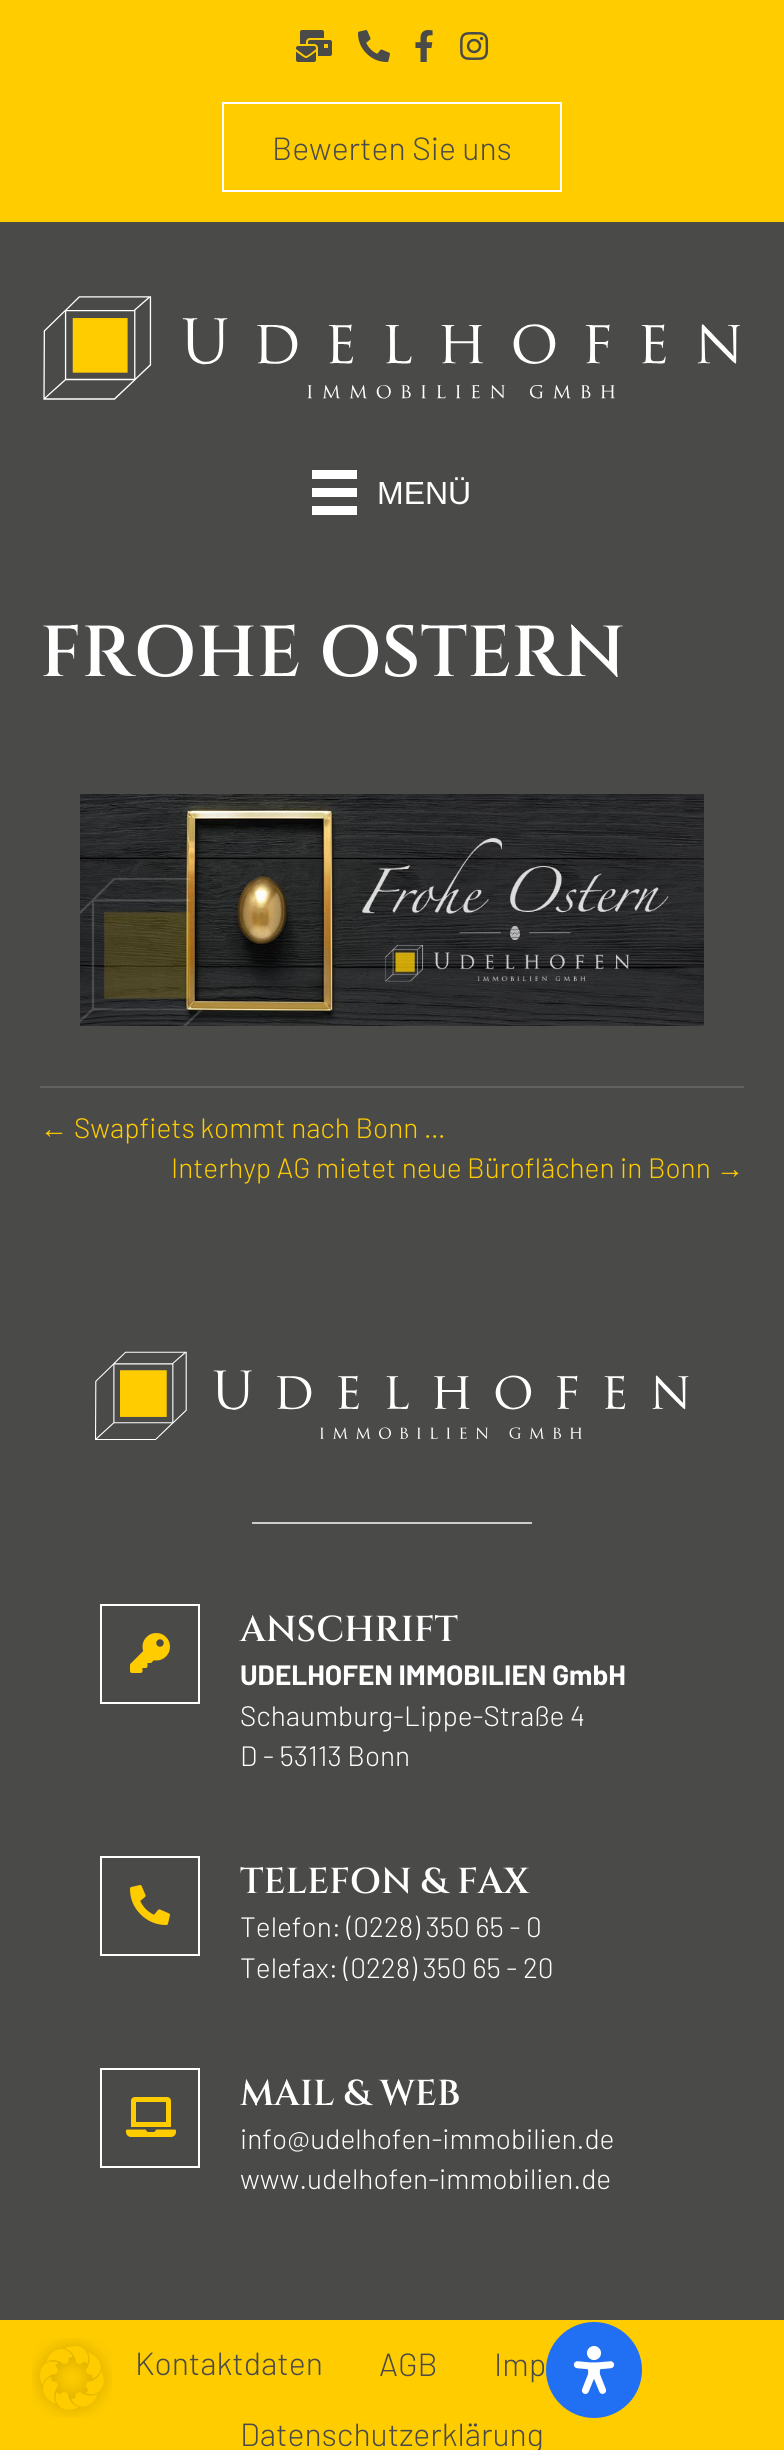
import math
import cairo

surface = cairo.ImageSurface(cairo.FORMAT_RGB24, 784, 2450)
cr = cairo.Context(surface)
options = cairo.FontOptions()
options.set_hint_metrics(cairo.HINT_METRICS_OFF)
options.set_hint_style(cairo.HINT_STYLE_NONE)
cr.set_font_options(options)
cr.set_miter_limit(4)


def rgb(code):
    cr.set_source_rgb(*(v / 255 for v in bytes.fromhex(code[-6:])))


def image(path, x, y, w, h):
    cr.save()
    cr.set_source_surface(cairo.ImageSurface.create_from_png(path), x, y)
    cr.rectangle(x, y, w, h)
    cr.fill()
    cr.restore()


rgb("#4a4a49")
cr.paint()
rgb("#ffcc00")
cr.rectangle(0, 0, 784, 222)
cr.fill()
image("img/1.png", 296, 30, 36, 32)
image("img/2.png", 358, 30, 32, 32)
image("img/3.png", 415, 30, 18, 32)
image("img/4.png", 460, 32, 29, 28)
cr.rectangle(223, 103, 338, 88)
rgb("#ffffff")
cr.stroke()
image("img/5.png", 43, 296, 697, 104)
for x, y, w, h, color in [
    (312, 470, 45, 9, "#ffffff"),
    (312, 488, 45, 9, "#ffffff"),
    (312, 506, 45, 9, "#ffffff"),
]:
    rgb(color)
    cr.rectangle(x, y, w, h)
    cr.fill()
image("img/6.png", 80, 794, 624, 232)
rgb("#616160")
cr.rectangle(40, 1086, 704, 2)
cr.fill()
image("img/7.png", 94, 1351, 595, 89)
rgb("#cecece")
cr.rectangle(252, 1522, 280, 2)
cr.fill()
cr.rectangle(101, 1605, 98, 98)
rgb("#ffffff")
cr.stroke()
image("img/8.png", 130, 1633, 40, 40)
cr.rectangle(101, 1857, 98, 98)
cr.stroke()
image("img/9.png", 130, 1885, 40, 40)
cr.rectangle(101, 2069, 98, 98)
cr.stroke()
image("img/10.png", 126, 2097, 50, 40)
rgb("#ffcc00")
cr.rectangle(0, 2320, 784, 130)
cr.fill()
image("img/11.png", 32, 2338, 80, 80)
rgb("#216ff3")
cr.arc(594, 2370, 48, 0, 2 * math.pi)
cr.fill()
image("img/12.png", 573, 2346, 42, 48)
cr.select_font_face("Barlow Light")
cr.set_font_size(32)
rgb("#4a4a49")
cr.move_to(272, 160)
cr.show_text("Bewerten Sie uns")
cr.select_font_face("Liberation Sans")
rgb("#ffffff")
cr.move_to(377, 504)
cr.show_text("MENÜ")
cr.select_font_face("Cinzel SemiBold")
cr.set_font_size(72)
cr.move_to(40, 676)
cr.show_text("FROHE OSTERN")
cr.select_font_face("Liberation Sans")
cr.set_font_size(28)
rgb("#ffcc00")
cr.move_to(40, 1138)
cr.show_text("←")
cr.select_font_face("Barlow Light")
cr.move_to(74, 1138)
cr.show_text("Swapfiets kommt nach Bonn …")
cr.move_to(171, 1178)
cr.show_text("Interhyp AG mietet neue Büroflächen in Bonn")
cr.select_font_face("Liberation Sans")
cr.move_to(716, 1178)
cr.show_text("→")
cr.select_font_face("Cinzel SemiBold")
cr.set_font_size(36)
rgb("#ffffff")
cr.move_to(240, 1641)
cr.show_text("ANSCHRIFT")
cr.select_font_face("Barlow", cairo.FONT_SLANT_NORMAL, cairo.FONT_WEIGHT_BOLD)
cr.set_font_size(28)
cr.move_to(240, 1685)
cr.show_text("UDELHOFEN IMMOBILIEN GmbH")
cr.select_font_face("Barlow Light")
cr.move_to(240, 1726)
cr.show_text("Schaumburg-Lippe-Straße 4")
cr.move_to(240, 1766)
cr.show_text("D - 53113 Bonn")
cr.select_font_face("Cinzel SemiBold")
cr.set_font_size(36)
cr.move_to(240, 1893)
cr.show_text("TELEFON & FAX")
cr.select_font_face("Barlow Light")
cr.set_font_size(28)
cr.move_to(240, 1937)
cr.show_text("Telefon: (0228) 350 65 - 0")
cr.move_to(240, 1978)
cr.show_text("Telefax: (0228) 350 65 - 20")
cr.select_font_face("Cinzel SemiBold")
cr.set_font_size(36)
cr.move_to(240, 2105)
cr.show_text("MAIL & WEB")
cr.select_font_face("Barlow Light")
cr.set_font_size(28)
cr.move_to(240, 2149)
cr.show_text("info@udelhofen-immobilien.de")
cr.move_to(240, 2189)
cr.show_text("www.udelhofen-immobilien.de")
cr.set_font_size(32)
rgb("#4a4a49")
for x, y, s in [
    (135, 2375, "Kontaktdaten"),
    (379, 2376, "AGB"),
    (494, 2376, "Imp"),
    (240, 2446, "Datenschutzerklärung"),
]:
    cr.move_to(x, y)
    cr.show_text(s)
surface.write_to_png("page.png")
